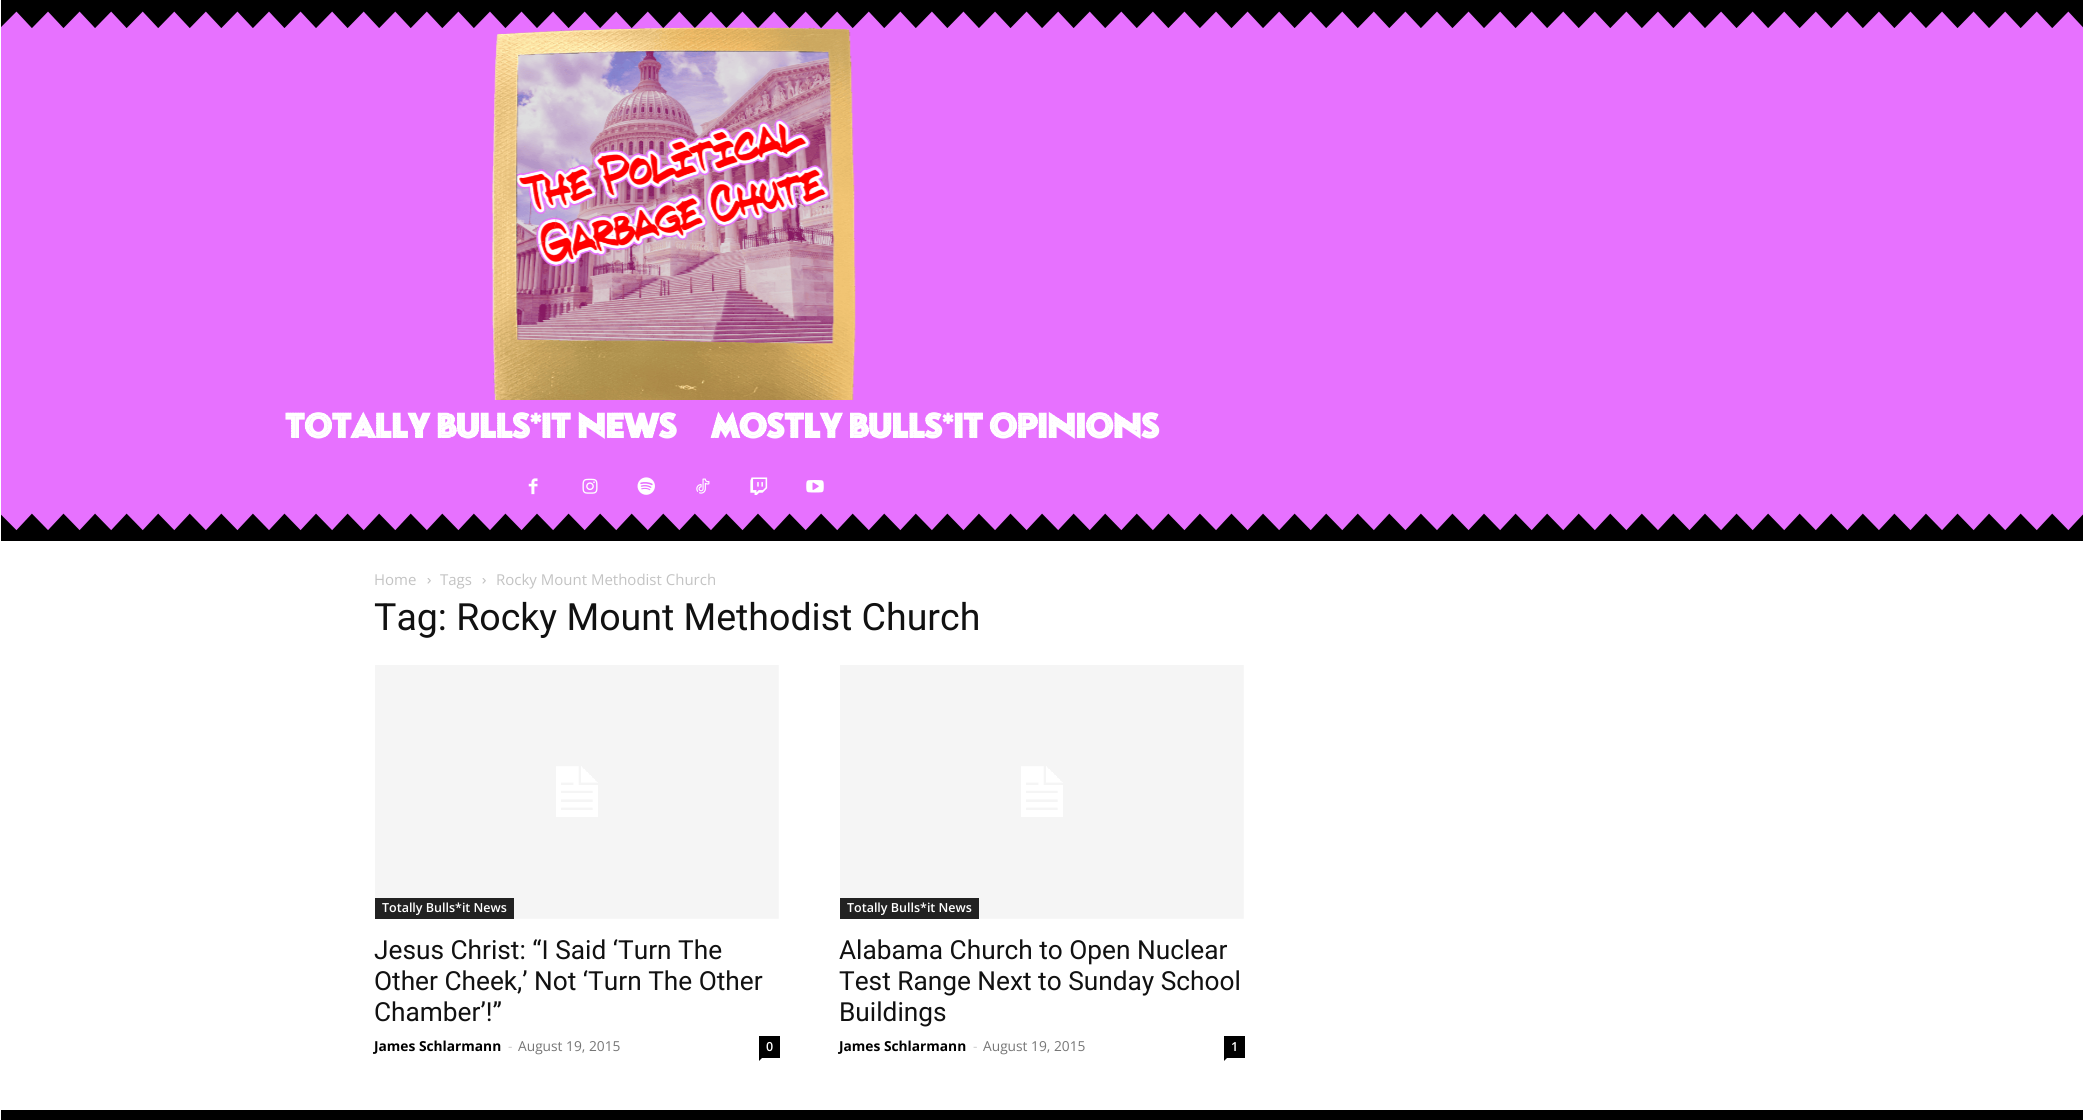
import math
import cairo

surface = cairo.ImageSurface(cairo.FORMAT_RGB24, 2083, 1120)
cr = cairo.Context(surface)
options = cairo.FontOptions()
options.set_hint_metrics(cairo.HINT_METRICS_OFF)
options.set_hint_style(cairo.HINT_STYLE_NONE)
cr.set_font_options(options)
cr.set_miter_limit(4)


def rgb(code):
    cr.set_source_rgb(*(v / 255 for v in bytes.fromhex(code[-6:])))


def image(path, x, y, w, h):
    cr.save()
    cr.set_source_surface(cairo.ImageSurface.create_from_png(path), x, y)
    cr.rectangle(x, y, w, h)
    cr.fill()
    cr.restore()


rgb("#ffffff")
cr.paint()
rgb("#e771ff")
cr.rectangle(1, 11, 2082, 520)
cr.fill()
image("img/1.png", 1, 0, 2082, 28)
image("img/2.png", 1, 513, 2082, 28)
image("img/3.png", 492, 26, 364, 374)
image("img/4.png", 528, 478, 10, 17)
image("img/5.png", 582, 478, 16, 16)
image("img/6.png", 637, 477, 18, 18)
image("img/7.png", 696, 478, 14, 16)
image("img/8.png", 750, 477, 18, 18)
image("img/9.png", 806, 480, 18, 13)
image("img/10.png", 427, 578, 4, 6)
image("img/10.png", 482, 578, 4, 6)
image("img/11.png", 375, 665, 404, 254)
rgb("#222222")
cr.rectangle(375, 898, 139, 21)
cr.fill()
rgb("#000000")
cr.rectangle(759, 1036, 21, 22)
cr.fill()
cr.new_path()
cr.move_to(759, 1057.5)
cr.line_to(762.5, 1057.5)
cr.line_to(759, 1061)
cr.close_path()
cr.fill()
image("img/11.png", 840, 665, 404, 254)
rgb("#222222")
cr.rectangle(840, 898, 139, 21)
cr.fill()
rgb("#000000")
cr.rectangle(1224, 1036, 21, 22)
cr.fill()
cr.new_path()
cr.move_to(1224, 1057.5)
cr.line_to(1227.5, 1057.5)
cr.line_to(1224, 1061)
cr.close_path()
cr.fill()
cr.rectangle(1, 1110, 2082, 10)
cr.fill()
cr.select_font_face("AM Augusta", cairo.FONT_SLANT_NORMAL, cairo.FONT_WEIGHT_BOLD)
cr.set_font_size(32.5)
rgb("#ffffff")
cr.move_to(285, 438)
cr.show_text("Totally Bulls*it News")
cr.move_to(711, 438)
cr.show_text("Mostly Bulls*it Opinions")
cr.select_font_face("Open Sans")
cr.set_font_size(15)
rgb("#c3c3c3")
for x, y, s in [
    (374, 585, "Home"),
    (440, 585, "Tags"),
    (496, 585, "Rocky Mount Methodist Church"),
]:
    cr.move_to(x, y)
    cr.show_text(s)
cr.select_font_face("Roboto")
cr.set_font_size(37.5)
rgb("#111111")
cr.move_to(374, 630)
cr.show_text("Tag: Rocky Mount Methodist Church")
cr.select_font_face("Open Sans SemiBold")
cr.set_font_size(12.5)
rgb("#ffffff")
cr.move_to(382, 912)
cr.show_text("Totally Bulls*it News")
cr.select_font_face("Roboto")
cr.set_font_size(26.25)
rgb("#111111")
for x, y, s in [
    (374, 959, "Jesus Christ: “I Said ‘Turn The"),
    (374, 990, "Other Cheek,’ Not ‘Turn The Other"),
    (374, 1021, "Chamber’!”"),
]:
    cr.move_to(x, y)
    cr.show_text(s)
cr.select_font_face("Open Sans", cairo.FONT_SLANT_NORMAL, cairo.FONT_WEIGHT_BOLD)
cr.set_font_size(13.75)
rgb("#000000")
cr.move_to(374, 1051)
cr.show_text("James Schlarmann")
cr.select_font_face("Open Sans")
rgb("#cccccc")
cr.move_to(508, 1051)
cr.show_text("-")
rgb("#767676")
cr.move_to(518, 1051)
cr.show_text("August 19, 2015")
cr.select_font_face("Open Sans SemiBold")
cr.set_font_size(12.5)
rgb("#ffffff")
cr.move_to(766, 1051)
cr.show_text("0")
cr.move_to(847, 912)
cr.show_text("Totally Bulls*it News")
cr.select_font_face("Roboto")
cr.set_font_size(26.25)
rgb("#111111")
for x, y, s in [
    (839, 959, "Alabama Church to Open Nuclear"),
    (839, 990, "Test Range Next to Sunday School"),
    (839, 1021, "Buildings"),
]:
    cr.move_to(x, y)
    cr.show_text(s)
cr.select_font_face("Open Sans", cairo.FONT_SLANT_NORMAL, cairo.FONT_WEIGHT_BOLD)
cr.set_font_size(13.75)
rgb("#000000")
cr.move_to(839, 1051)
cr.show_text("James Schlarmann")
cr.select_font_face("Open Sans")
rgb("#cccccc")
cr.move_to(973, 1051)
cr.show_text("-")
rgb("#767676")
cr.move_to(983, 1051)
cr.show_text("August 19, 2015")
cr.select_font_face("Open Sans SemiBold")
cr.set_font_size(12.5)
rgb("#ffffff")
cr.move_to(1231, 1051)
cr.show_text("1")
surface.write_to_png("page.png")
